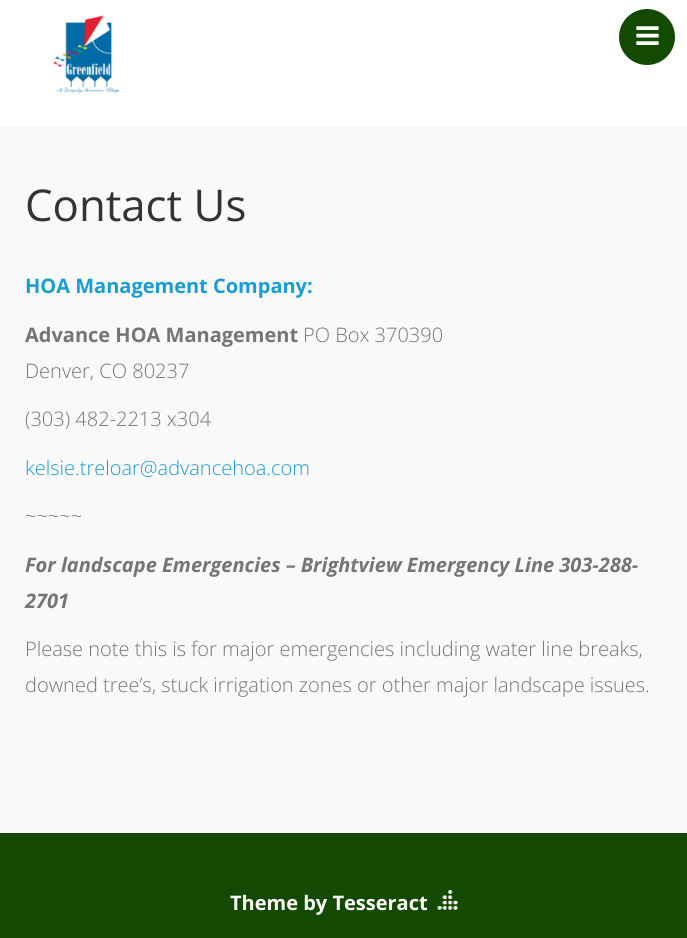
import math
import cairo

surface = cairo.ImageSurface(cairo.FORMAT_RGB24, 687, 938)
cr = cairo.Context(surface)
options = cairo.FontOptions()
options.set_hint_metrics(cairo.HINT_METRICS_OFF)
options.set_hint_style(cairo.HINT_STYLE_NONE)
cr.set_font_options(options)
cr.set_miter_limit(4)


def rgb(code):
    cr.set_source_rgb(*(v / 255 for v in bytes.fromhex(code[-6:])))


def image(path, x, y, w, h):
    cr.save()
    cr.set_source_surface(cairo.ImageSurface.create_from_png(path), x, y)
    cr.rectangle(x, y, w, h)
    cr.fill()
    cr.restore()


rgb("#f9f9f9")
cr.paint()
rgb("#ffffff")
cr.rectangle(0, 0, 687, 126)
cr.fill()
image("img/1.png", 52, 15, 69, 79)
rgb("#144902")
cr.arc(647, 37, 28, 0, 2 * math.pi)
cr.fill()
image("img/2.png", 636, 26, 23, 19)
cr.rectangle(0, 833, 687, 105)
cr.fill()
image("img/3.png", 437, 890, 21, 20)
cr.select_font_face("Open Sans")
cr.set_font_size(43.75)
rgb("#333333")
cr.move_to(25, 221)
cr.show_text("Contact Us")
cr.select_font_face("Open Sans", cairo.FONT_SLANT_NORMAL, cairo.FONT_WEIGHT_BOLD)
cr.set_font_size(20)
rgb("#199cd8")
cr.move_to(25, 293)
cr.show_text("HOA Management Company:")
rgb("#757575")
cr.move_to(25, 342)
cr.show_text("Advance HOA Management")
cr.select_font_face("Open Sans Light")
for x, y, s in [
    (303, 342, "PO Box 370390"),
    (25, 378, "Denver, CO 80237"),
    (25, 426, "(303) 482-2213 x304"),
]:
    cr.move_to(x, y)
    cr.show_text(s)
rgb("#199cd8")
cr.move_to(25, 475)
cr.show_text("kelsie.treloar@advancehoa.com")
rgb("#757575")
cr.move_to(25, 523)
cr.show_text("~~~~~")
cr.select_font_face("Open Sans", cairo.FONT_SLANT_ITALIC, cairo.FONT_WEIGHT_BOLD)
cr.move_to(25, 572)
cr.show_text("For landscape Emergencies – Brightview Emergency Line 303-288-")
cr.move_to(25, 608)
cr.show_text("2701")
cr.select_font_face("Open Sans Light")
cr.move_to(25, 656)
cr.show_text("Please note this is for major emergencies including water line breaks,")
cr.move_to(25, 692)
cr.show_text("downed tree’s, stuck irrigation zones or other major landscape issues.")
cr.select_font_face("Open Sans", cairo.FONT_SLANT_NORMAL, cairo.FONT_WEIGHT_BOLD)
rgb("#ffffff")
cr.move_to(230, 910)
cr.show_text("Theme by Tesseract")
surface.write_to_png("page.png")
